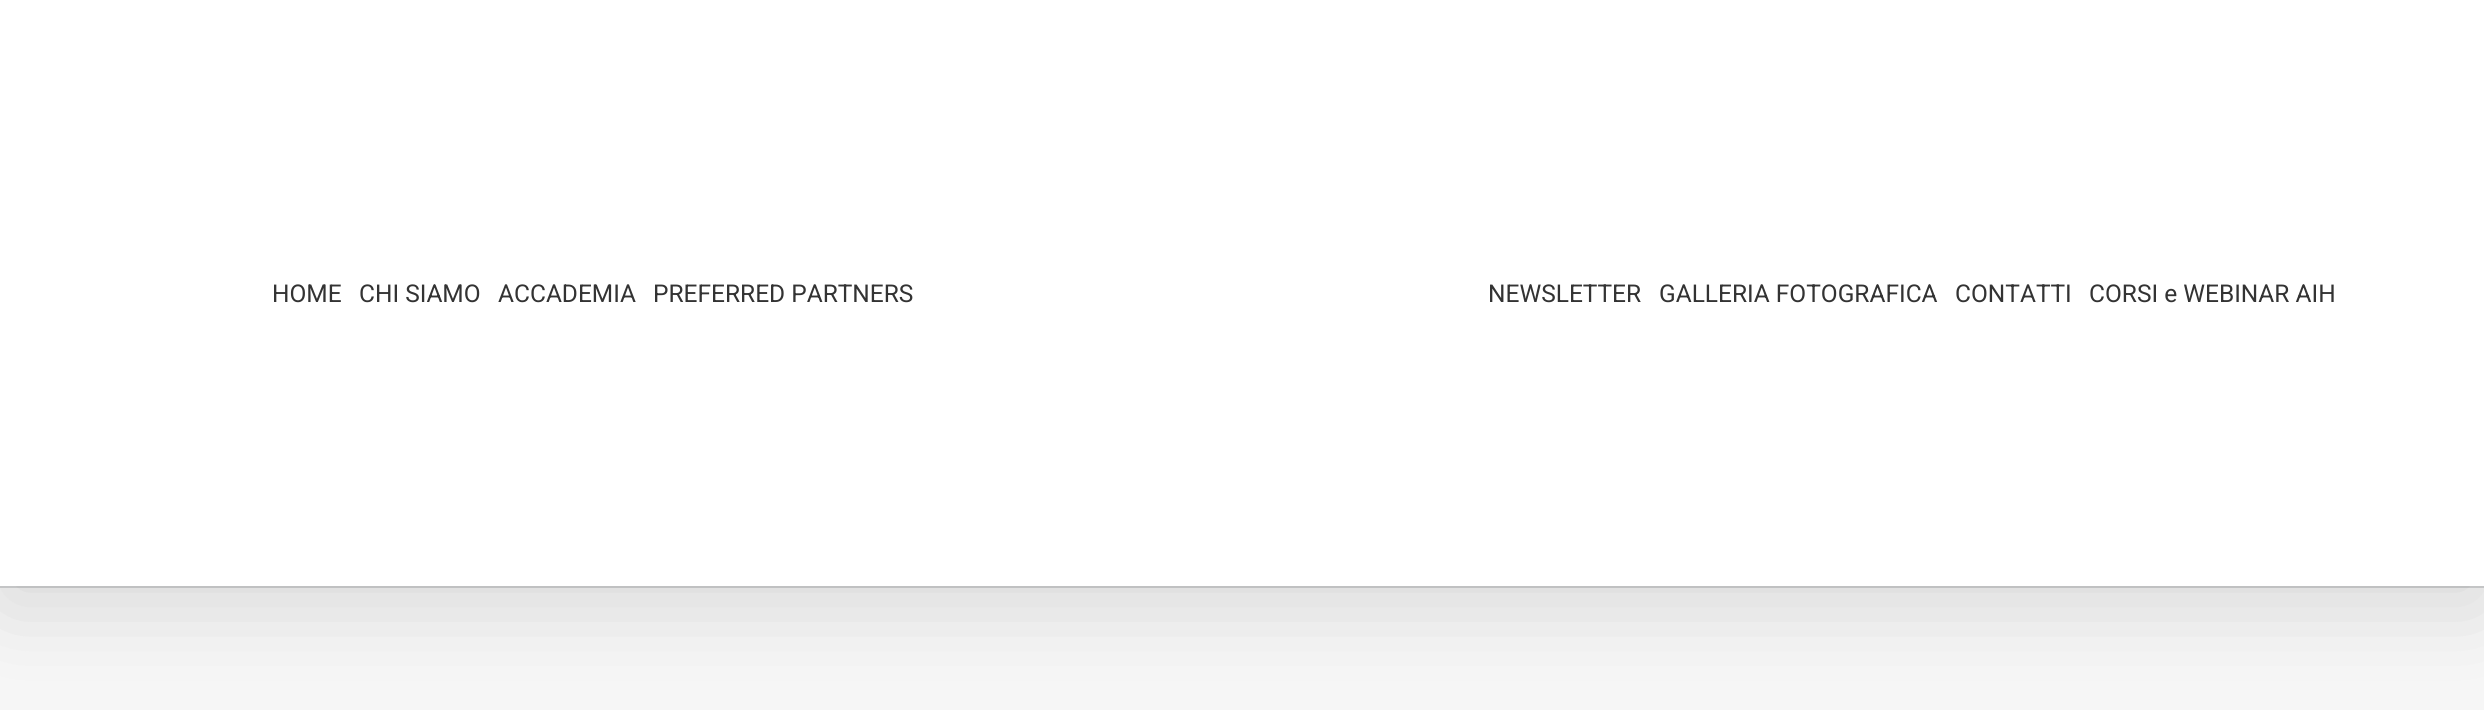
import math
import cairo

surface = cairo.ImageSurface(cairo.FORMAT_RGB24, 2484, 710)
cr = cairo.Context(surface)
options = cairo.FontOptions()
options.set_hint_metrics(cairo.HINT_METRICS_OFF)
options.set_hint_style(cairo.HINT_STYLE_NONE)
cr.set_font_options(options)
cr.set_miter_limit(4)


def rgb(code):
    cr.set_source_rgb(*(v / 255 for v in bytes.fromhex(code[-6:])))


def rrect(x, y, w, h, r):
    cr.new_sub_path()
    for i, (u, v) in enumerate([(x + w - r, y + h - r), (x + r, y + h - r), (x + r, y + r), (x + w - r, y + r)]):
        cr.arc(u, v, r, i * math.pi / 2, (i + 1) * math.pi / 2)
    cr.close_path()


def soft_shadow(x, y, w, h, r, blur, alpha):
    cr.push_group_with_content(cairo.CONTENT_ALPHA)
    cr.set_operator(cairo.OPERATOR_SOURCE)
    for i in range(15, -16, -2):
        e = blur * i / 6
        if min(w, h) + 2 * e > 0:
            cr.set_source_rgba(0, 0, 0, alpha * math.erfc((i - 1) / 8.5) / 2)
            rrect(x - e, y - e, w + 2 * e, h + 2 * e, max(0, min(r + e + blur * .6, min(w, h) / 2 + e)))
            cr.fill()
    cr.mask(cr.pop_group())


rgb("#f6f6f6")
cr.paint()
rgb("#d2d3d4")
cr.rectangle(0, 586, 2484, 2)
cr.fill()
rgb("#000000")
soft_shadow(4, 21, 2478, 579, 0, 44, 0.14)
rgb("#ffffff")
cr.rectangle(0, 0, 2484, 586)
cr.fill()
cr.select_font_face("Roboto")
cr.set_font_size(24.5)
rgb("#333333")
for x, y, s in [
    (272, 302, "HOME"),
    (359, 302, "CHI SIAMO"),
    (498, 302, "ACCADEMIA"),
    (653, 302, "PREFERRED PARTNERS"),
    (1488, 302, "NEWSLETTER"),
    (1659, 302, "GALLERIA FOTOGRAFICA"),
    (1955, 302, "CONTATTI"),
    (2089, 302, "CORSI e WEBINAR AIH"),
]:
    cr.move_to(x, y)
    cr.show_text(s)
surface.write_to_png("page.png")
